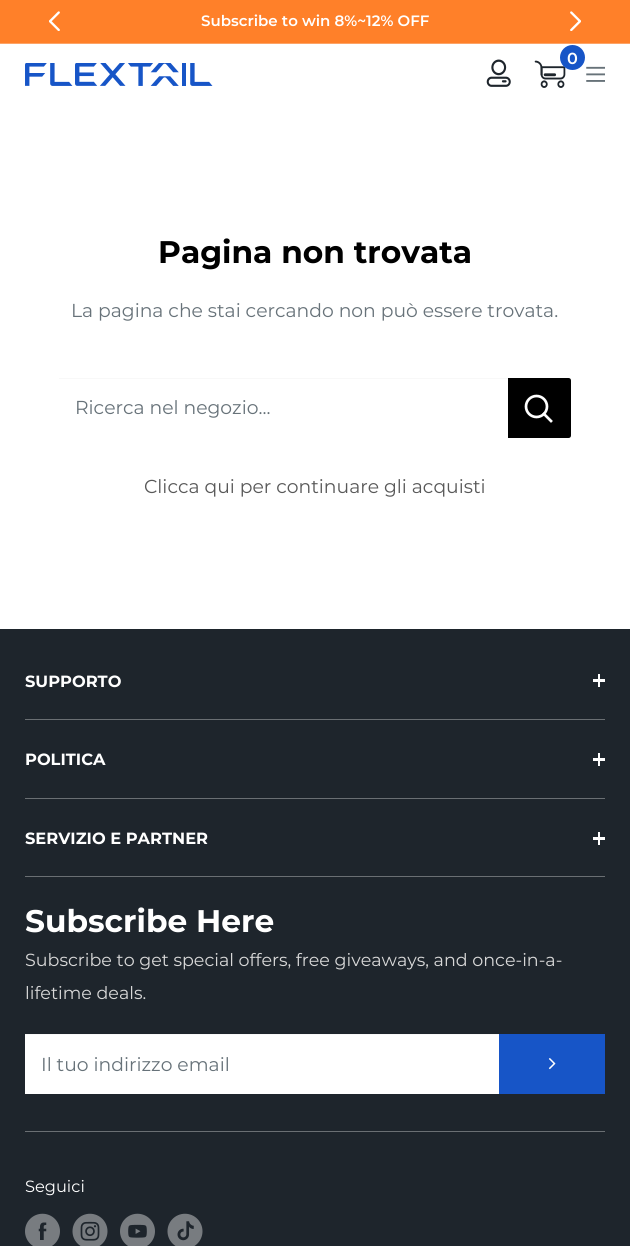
import math
import cairo

surface = cairo.ImageSurface(cairo.FORMAT_RGB24, 630, 1246)
cr = cairo.Context(surface)
options = cairo.FontOptions()
options.set_hint_metrics(cairo.HINT_METRICS_OFF)
options.set_hint_style(cairo.HINT_STYLE_NONE)
cr.set_font_options(options)
cr.set_miter_limit(4)


def rgb(code):
    cr.set_source_rgb(*(v / 255 for v in bytes.fromhex(code[-6:])))


def image(path, x, y, w, h):
    cr.save()
    cr.set_source_surface(cairo.ImageSurface.create_from_png(path), x, y)
    cr.rectangle(x, y, w, h)
    cr.fill()
    cr.restore()


rgb("#ffffff")
cr.paint()
rgb("#ff8029")
cr.rectangle(0, 0, 630, 43)
cr.fill()
rgb("#fda467")
cr.rectangle(0, 43, 630, 1)
cr.fill()
image("img/1.png", 49, 11, 11, 20)
image("img/2.png", 570, 11, 11, 20)
image("img/3.png", 486, 59, 25, 28)
image("img/4.png", 534, 60, 32, 28)
rgb("#1755c7")
cr.arc(572.5, 57.5, 12.5, 0, 2 * math.pi)
cr.fill()
image("img/5.png", 586, 66, 19, 16)
image("img/6.png", 25, 63, 188, 23)
rgb("#f8f8f8")
cr.rectangle(59, 378, 449, 1)
cr.fill()
rgb("#000000")
cr.new_path()
cr.move_to(508, 378)
cr.line_to(568.5, 378)
cr.curve_to(570, 378, 571, 379, 571, 380.5)
cr.line_to(571, 435.5)
cr.curve_to(571, 437, 570, 438, 568.5, 438)
cr.line_to(508, 438)
cr.close_path()
cr.fill()
cr.new_path()
cr.move_to(551, 421)
cr.line_to(544, 414)
rgb("#ffffff")
cr.set_line_width(2.7)
cr.set_line_cap(cairo.LINE_CAP_SQUARE)
cr.stroke()
cr.arc(536.5, 406.5, 10.5, 0, 2 * math.pi)
cr.set_line_cap(cairo.LINE_CAP_BUTT)
cr.stroke()
for x, y, w, h, color in [
    (0, 629, 630, 617, "#1e252c"),
    (25, 719, 580, 1, "#6a6f73"),
    (598, 674, 2, 13, "#ffffff"),
    (593, 679, 12, 3, "#ffffff"),
    (25, 798, 580, 1, "#6a6f73"),
    (598, 753, 2, 13, "#ffffff"),
    (593, 758, 12, 3, "#ffffff"),
    (25, 876, 580, 1, "#6a6f73"),
    (598, 832, 2, 13, "#ffffff"),
    (593, 837, 12, 3, "#ffffff"),
    (25, 1035, 474, 59, "#ffffff"),
    (25, 1034, 474, 1, "#f8f8f8"),
    (499, 1034, 106, 60, "#1755c7"),
]:
    rgb(color)
    cr.rectangle(x, y, w, h)
    cr.fill()
image("img/7.png", 548, 1058, 8, 12)
rgb("#6a6f73")
cr.rectangle(25, 1131, 580, 1)
cr.fill()
image("img/8.png", 25, 1213, 35, 33)
image("img/9.png", 72, 1213, 36, 33)
image("img/10.png", 120, 1213, 35, 33)
image("img/11.png", 167, 1213, 36, 33)
cr.select_font_face("Montserrat SemiBold")
cr.set_font_size(15)
rgb("#ffffff")
cr.move_to(201, 26)
cr.show_text("Subscribe to win 8%~12% OFF")
cr.set_font_size(16)
cr.move_to(567, 64)
cr.show_text("0")
cr.select_font_face("Montserrat", cairo.FONT_SLANT_NORMAL, cairo.FONT_WEIGHT_BOLD)
cr.set_font_size(31.25)
rgb("#000000")
cr.move_to(158, 263)
cr.show_text("Pagina non trovata")
cr.select_font_face("Montserrat")
cr.set_font_size(18.75)
rgb("#677279")
cr.move_to(71, 317)
cr.show_text("La pagina che stai cercando non può essere trovata.")
cr.move_to(75, 414)
cr.show_text("Ricerca nel negozio...")
rgb("#585858")
cr.move_to(144, 493)
cr.show_text("Clicca qui per continuare gli acquisti")
cr.select_font_face("Montserrat", cairo.FONT_SLANT_NORMAL, cairo.FONT_WEIGHT_BOLD)
cr.set_font_size(16.25)
rgb("#ffffff")
for x, y, s in [
    (25, 687, "SUPPORTO"),
    (25, 765, "POLITICA"),
    (25, 844, "SERVIZIO E PARTNER"),
]:
    cr.move_to(x, y)
    cr.show_text(s)
cr.set_font_size(31.25)
cr.move_to(25, 932)
cr.show_text("Subscribe Here")
cr.select_font_face("Montserrat")
cr.set_font_size(17.5)
rgb("#d8d8d8")
cr.move_to(25, 966)
cr.show_text("Subscribe to get special offers, free giveaways, and once-in-a-")
cr.move_to(25, 999)
cr.show_text("lifetime deals.")
cr.set_font_size(18.75)
rgb("#677279")
cr.move_to(41, 1071)
cr.show_text("Il tuo indirizzo email")
cr.set_font_size(16.25)
rgb("#ffffff")
cr.move_to(25, 1192)
cr.show_text("Seguici")
surface.write_to_png("page.png")
